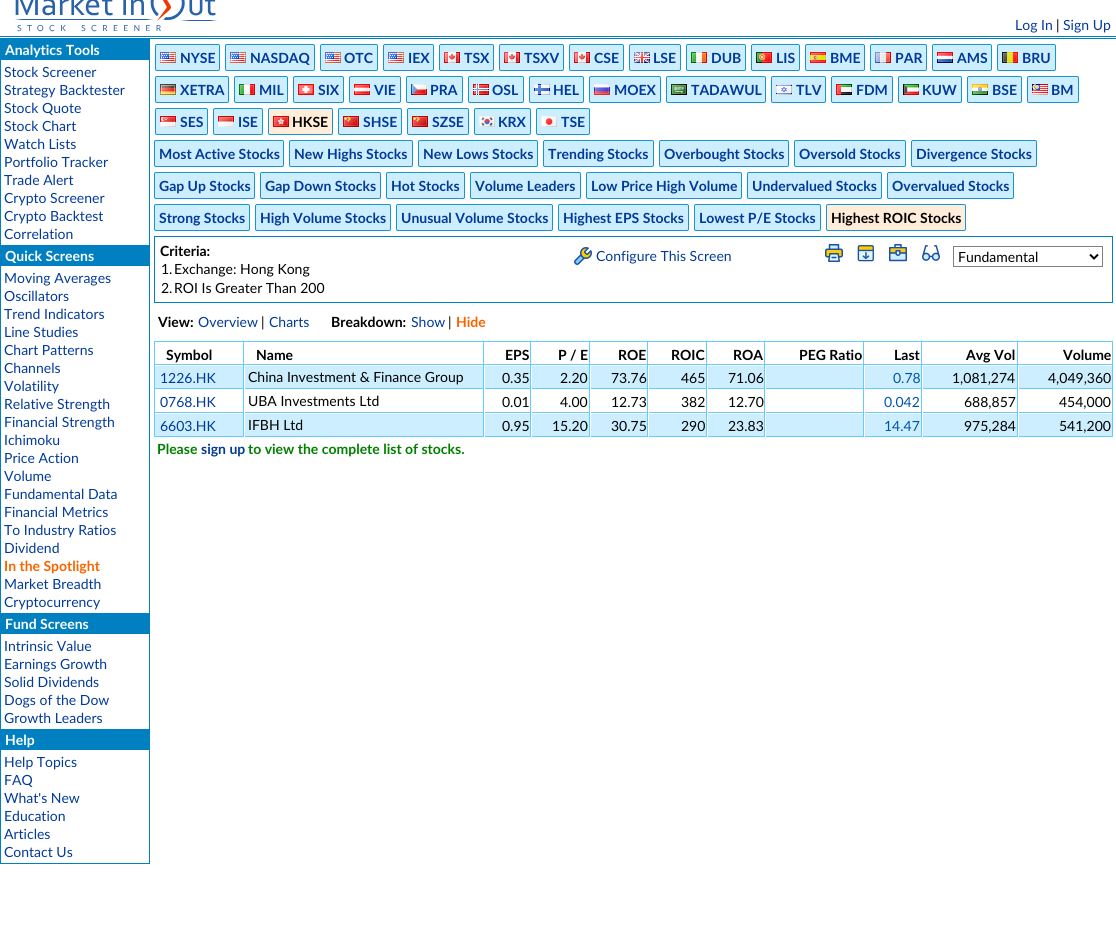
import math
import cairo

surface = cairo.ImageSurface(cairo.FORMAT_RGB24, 1116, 949)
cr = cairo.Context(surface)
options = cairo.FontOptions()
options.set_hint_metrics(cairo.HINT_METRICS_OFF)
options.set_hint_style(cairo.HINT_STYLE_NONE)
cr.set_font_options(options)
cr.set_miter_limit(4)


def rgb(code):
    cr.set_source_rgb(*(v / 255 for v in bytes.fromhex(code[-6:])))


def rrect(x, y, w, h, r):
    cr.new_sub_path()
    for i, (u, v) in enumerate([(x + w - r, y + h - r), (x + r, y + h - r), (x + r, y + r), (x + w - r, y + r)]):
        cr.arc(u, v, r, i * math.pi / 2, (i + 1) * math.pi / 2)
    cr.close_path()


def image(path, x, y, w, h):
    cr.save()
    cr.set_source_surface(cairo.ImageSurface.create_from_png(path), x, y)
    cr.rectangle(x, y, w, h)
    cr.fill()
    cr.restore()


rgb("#ffffff")
cr.paint()
image("img/1.png", 15, 0, 203, 32)
for x, y, w, h, color in [
    (0, 36, 1116, 1, "#0080c0"),
    (0, 38, 150, 22, "#0080c0"),
    (149, 60, 1, 185, "#0080c0"),
    (0, 60, 1, 185, "#0080c0"),
    (0, 245, 150, 21, "#0080c0"),
    (149, 266, 1, 347, "#0080c0"),
    (0, 266, 1, 347, "#0080c0"),
    (0, 613, 150, 21, "#0080c0"),
    (149, 634, 1, 95, "#0080c0"),
    (0, 634, 1, 95, "#0080c0"),
    (0, 729, 150, 21, "#0080c0"),
    (149, 750, 1, 114, "#0080c0"),
    (0, 863, 150, 1, "#0080c0"),
    (0, 750, 1, 114, "#0080c0"),
    (150, 38, 966, 1, "#0080c0"),
]:
    rgb(color)
    cr.rectangle(x, y, w, h)
    cr.fill()
rgb("#cceeff")
rrect(155.5, 44.5, 64, 26, 1.5)
cr.fill_preserve()
rgb("#1794d2")
cr.set_line_width(1)
cr.stroke()
image("img/2.png", 160, 52, 16, 11)
rgb("#cceeff")
rrect(225.5, 44.5, 89, 26, 1.5)
cr.fill_preserve()
rgb("#1794d2")
cr.stroke()
image("img/2.png", 230, 52, 16, 11)
rgb("#cceeff")
rrect(320.5, 44.5, 57, 26, 1.5)
cr.fill_preserve()
rgb("#1794d2")
cr.stroke()
image("img/2.png", 325, 52, 16, 11)
rgb("#cceeff")
rrect(383.5, 44.5, 50, 26, 1.5)
cr.fill_preserve()
rgb("#1794d2")
cr.stroke()
image("img/2.png", 388, 52, 16, 11)
rgb("#cceeff")
rrect(439.5, 44.5, 54, 26, 1.5)
cr.fill_preserve()
rgb("#1794d2")
cr.stroke()
image("img/3.png", 444, 52, 16, 11)
rgb("#cceeff")
rrect(499.5, 44.5, 64, 26, 1.5)
cr.fill_preserve()
rgb("#1794d2")
cr.stroke()
image("img/3.png", 504, 52, 16, 11)
rgb("#cceeff")
rrect(569.5, 44.5, 54, 26, 1.5)
cr.fill_preserve()
rgb("#1794d2")
cr.stroke()
image("img/3.png", 574, 52, 16, 11)
rgb("#cceeff")
rrect(629.5, 44.5, 51, 26, 1.5)
cr.fill_preserve()
rgb("#1794d2")
cr.stroke()
image("img/4.png", 634, 52, 16, 11)
rgb("#cceeff")
rrect(686.5, 44.5, 59, 26, 1.5)
cr.fill_preserve()
rgb("#1794d2")
cr.stroke()
image("img/5.png", 691, 52, 16, 11)
rgb("#cceeff")
rrect(751.5, 44.5, 48, 26, 1.5)
cr.fill_preserve()
rgb("#1794d2")
cr.stroke()
image("img/6.png", 756, 52, 16, 11)
rgb("#cceeff")
rrect(805.5, 44.5, 59, 26, 1.5)
cr.fill_preserve()
rgb("#1794d2")
cr.stroke()
image("img/7.png", 810, 52, 16, 11)
rgb("#cceeff")
rrect(870.5, 44.5, 56, 26, 1.5)
cr.fill_preserve()
rgb("#1794d2")
cr.stroke()
image("img/8.png", 875, 52, 16, 11)
rgb("#cceeff")
rrect(932.5, 44.5, 59, 26, 1.5)
cr.fill_preserve()
rgb("#1794d2")
cr.stroke()
image("img/9.png", 937, 52, 16, 11)
rgb("#cceeff")
rrect(997.5, 44.5, 58, 26, 1.5)
cr.fill_preserve()
rgb("#1794d2")
cr.stroke()
image("img/10.png", 1002, 52, 16, 11)
rgb("#cceeff")
rrect(155.5, 76.5, 73, 26, 1.5)
cr.fill_preserve()
rgb("#1794d2")
cr.stroke()
image("img/11.png", 160, 84, 16, 11)
rgb("#cceeff")
rrect(234.5, 76.5, 53, 26, 1.5)
cr.fill_preserve()
rgb("#1794d2")
cr.stroke()
image("img/12.png", 239, 84, 16, 11)
rgb("#cceeff")
rrect(293.5, 76.5, 50, 26, 1.5)
cr.fill_preserve()
rgb("#1794d2")
cr.stroke()
image("img/13.png", 298, 84, 16, 11)
rgb("#cceeff")
rrect(349.5, 76.5, 51, 26, 1.5)
cr.fill_preserve()
rgb("#1794d2")
cr.stroke()
image("img/14.png", 354, 84, 16, 11)
rgb("#cceeff")
rrect(406.5, 76.5, 56, 26, 1.5)
cr.fill_preserve()
rgb("#1794d2")
cr.stroke()
image("img/15.png", 411, 84, 16, 11)
rgb("#cceeff")
rrect(468.5, 76.5, 55, 26, 1.5)
cr.fill_preserve()
rgb("#1794d2")
cr.stroke()
image("img/16.png", 473, 84, 16, 11)
rgb("#cceeff")
rrect(529.5, 76.5, 54, 26, 1.5)
cr.fill_preserve()
rgb("#1794d2")
cr.stroke()
image("img/17.png", 534, 84, 16, 11)
rgb("#cceeff")
rrect(589.5, 76.5, 71, 26, 1.5)
cr.fill_preserve()
rgb("#1794d2")
cr.stroke()
image("img/18.png", 594, 84, 16, 11)
rgb("#cceeff")
rrect(666.5, 76.5, 99, 26, 1.5)
cr.fill_preserve()
rgb("#1794d2")
cr.stroke()
image("img/19.png", 671, 84, 16, 11)
rgb("#cceeff")
rrect(771.5, 76.5, 54, 26, 1.5)
cr.fill_preserve()
rgb("#1794d2")
cr.stroke()
image("img/20.png", 776, 84, 16, 11)
rgb("#cceeff")
rrect(831.5, 76.5, 61, 26, 1.5)
cr.fill_preserve()
rgb("#1794d2")
cr.stroke()
image("img/21.png", 836, 84, 16, 11)
rgb("#cceeff")
rrect(898.5, 76.5, 63, 26, 1.5)
cr.fill_preserve()
rgb("#1794d2")
cr.stroke()
image("img/22.png", 903, 84, 16, 11)
rgb("#cceeff")
rrect(967.5, 76.5, 54, 26, 1.5)
cr.fill_preserve()
rgb("#1794d2")
cr.stroke()
image("img/23.png", 972, 84, 16, 11)
rgb("#cceeff")
rrect(1027.5, 76.5, 51, 26, 1.5)
cr.fill_preserve()
rgb("#1794d2")
cr.stroke()
image("img/24.png", 1032, 84, 16, 11)
rgb("#cceeff")
rrect(155.5, 108.5, 52, 26, 1.5)
cr.fill_preserve()
rgb("#1794d2")
cr.stroke()
image("img/25.png", 160, 116, 16, 11)
rgb("#cceeff")
rrect(213.5, 108.5, 49, 26, 1.5)
cr.fill_preserve()
rgb("#1794d2")
cr.stroke()
image("img/26.png", 218, 116, 16, 11)
rgb("#ffecd9")
rrect(268.5, 108.5, 64, 26, 1.5)
cr.fill_preserve()
rgb("#1794d2")
cr.stroke()
image("img/27.png", 273, 116, 16, 11)
rgb("#cceeff")
rrect(338.5, 108.5, 63, 26, 1.5)
cr.fill_preserve()
rgb("#1794d2")
cr.stroke()
image("img/28.png", 343, 116, 16, 11)
rgb("#cceeff")
rrect(407.5, 108.5, 61, 26, 1.5)
cr.fill_preserve()
rgb("#1794d2")
cr.stroke()
image("img/28.png", 412, 116, 16, 11)
rgb("#cceeff")
rrect(474.5, 108.5, 56, 26, 1.5)
cr.fill_preserve()
rgb("#1794d2")
cr.stroke()
image("img/29.png", 479, 116, 16, 11)
rgb("#cceeff")
rrect(536.5, 108.5, 53, 26, 1.5)
cr.fill_preserve()
rgb("#1794d2")
cr.stroke()
image("img/30.png", 541, 116, 16, 11)
rgb("#cceeff")
rrect(154.5, 140.5, 129, 26, 1.5)
cr.fill_preserve()
rgb("#1794d2")
cr.stroke()
rgb("#cceeff")
rrect(289.5, 140.5, 123, 26, 1.5)
cr.fill_preserve()
rgb("#1794d2")
cr.stroke()
rgb("#cceeff")
rrect(418.5, 140.5, 119, 26, 1.5)
cr.fill_preserve()
rgb("#1794d2")
cr.stroke()
rgb("#cceeff")
rrect(543.5, 140.5, 110, 26, 1.5)
cr.fill_preserve()
rgb("#1794d2")
cr.stroke()
rgb("#cceeff")
rrect(659.5, 140.5, 129, 26, 1.5)
cr.fill_preserve()
rgb("#1794d2")
cr.stroke()
rgb("#cceeff")
rrect(794.5, 140.5, 111, 26, 1.5)
cr.fill_preserve()
rgb("#1794d2")
cr.stroke()
rgb("#cceeff")
rrect(911.5, 140.5, 125, 26, 1.5)
cr.fill_preserve()
rgb("#1794d2")
cr.stroke()
rgb("#cceeff")
rrect(154.5, 172.5, 100, 26, 1.5)
cr.fill_preserve()
rgb("#1794d2")
cr.stroke()
rgb("#cceeff")
rrect(260.5, 172.5, 120, 26, 1.5)
cr.fill_preserve()
rgb("#1794d2")
cr.stroke()
rgb("#cceeff")
rrect(386.5, 172.5, 78, 26, 1.5)
cr.fill_preserve()
rgb("#1794d2")
cr.stroke()
rgb("#cceeff")
rrect(470.5, 172.5, 110, 26, 1.5)
cr.fill_preserve()
rgb("#1794d2")
cr.stroke()
rgb("#cceeff")
rrect(586.5, 172.5, 155, 26, 1.5)
cr.fill_preserve()
rgb("#1794d2")
cr.stroke()
rgb("#cceeff")
rrect(747.5, 172.5, 134, 26, 1.5)
cr.fill_preserve()
rgb("#1794d2")
cr.stroke()
rgb("#cceeff")
rrect(887.5, 172.5, 126, 26, 1.5)
cr.fill_preserve()
rgb("#1794d2")
cr.stroke()
rgb("#cceeff")
rrect(154.5, 204.5, 95, 26, 1.5)
cr.fill_preserve()
rgb("#1794d2")
cr.stroke()
rgb("#cceeff")
rrect(255.5, 204.5, 135, 26, 1.5)
cr.fill_preserve()
rgb("#1794d2")
cr.stroke()
rgb("#cceeff")
rrect(396.5, 204.5, 156, 26, 1.5)
cr.fill_preserve()
rgb("#1794d2")
cr.stroke()
rgb("#cceeff")
rrect(558.5, 204.5, 130, 26, 1.5)
cr.fill_preserve()
rgb("#1794d2")
cr.stroke()
rgb("#cceeff")
rrect(694.5, 204.5, 126, 26, 1.5)
cr.fill_preserve()
rgb("#1794d2")
cr.stroke()
rgb("#ffecd9")
rrect(826.5, 204.5, 139, 26, 1.5)
cr.fill_preserve()
rgb("#1794d2")
cr.stroke()
cr.rectangle(154.5, 236.5, 958, 66)
rgb("#0080c0")
cr.stroke()
image("img/31.png", 574, 247, 18, 18)
image("img/32.png", 825, 244, 18, 18)
image("img/33.png", 857, 245, 17, 17)
image("img/34.png", 889, 244, 18, 18)
image("img/35.png", 922, 245, 18, 16)
cr.rectangle(953.5, 246.5, 149, 20)
rgb("#808080")
cr.stroke()
cr.new_path()
cr.move_to(1090, 254.5)
cr.line_to(1094, 258.5)
cr.line_to(1098, 254.5)
rgb("#000000")
cr.set_line_width(2)
cr.stroke()
cr.rectangle(154.5, 341.5, 89, 23)
rgb("#64cdff")
cr.set_line_width(1)
cr.stroke()
for x, y, w, h, color in [
    (244, 341, 869, 1, "#64cdff"),
    (483, 341, 1, 96, "#64cdff"),
    (244, 364, 240, 1, "#64cdff"),
    (530, 341, 1, 96, "#64cdff"),
    (484, 364, 47, 1, "#64cdff"),
    (589, 341, 1, 96, "#64cdff"),
    (531, 364, 59, 1, "#64cdff"),
    (647, 341, 1, 96, "#64cdff"),
    (590, 364, 58, 1, "#64cdff"),
    (706, 341, 1, 96, "#64cdff"),
    (648, 364, 59, 1, "#64cdff"),
    (764, 341, 1, 96, "#64cdff"),
    (707, 364, 58, 1, "#64cdff"),
    (863, 341, 1, 96, "#64cdff"),
    (765, 364, 99, 1, "#64cdff"),
    (921, 341, 1, 96, "#64cdff"),
    (864, 364, 58, 1, "#64cdff"),
    (1017, 341, 1, 96, "#64cdff"),
    (922, 364, 96, 1, "#64cdff"),
    (1112, 341, 1, 96, "#64cdff"),
    (1018, 364, 95, 1, "#64cdff"),
    (155, 366, 88, 22, "#cceeff"),
    (243, 365, 1, 72, "#64cdff"),
    (154, 388, 959, 1, "#64cdff"),
    (154, 365, 1, 24, "#64cdff"),
    (245, 366, 238, 22, "#cceeff"),
    (244, 388, 1, 1, "#ffffff"),
    (485, 366, 45, 22, "#cceeff"),
    (484, 388, 1, 1, "#ffffff"),
    (532, 366, 57, 22, "#cceeff"),
    (531, 388, 1, 1, "#ffffff"),
    (591, 366, 56, 22, "#cceeff"),
    (590, 388, 1, 1, "#ffffff"),
    (649, 366, 57, 22, "#cceeff"),
    (648, 388, 1, 1, "#ffffff"),
    (708, 366, 56, 22, "#cceeff"),
    (707, 388, 1, 1, "#ffffff"),
    (766, 366, 97, 22, "#cceeff"),
    (765, 388, 1, 1, "#ffffff"),
    (865, 366, 56, 22, "#cceeff"),
    (864, 388, 1, 1, "#ffffff"),
    (923, 366, 94, 22, "#cceeff"),
    (922, 388, 1, 1, "#ffffff"),
    (1019, 366, 93, 22, "#cceeff"),
    (1018, 388, 1, 1, "#ffffff"),
    (154, 412, 959, 1, "#64cdff"),
    (154, 389, 1, 24, "#64cdff"),
    (244, 412, 1, 1, "#ffffff"),
    (484, 412, 1, 1, "#ffffff"),
    (531, 412, 1, 1, "#ffffff"),
    (590, 412, 1, 1, "#ffffff"),
    (648, 412, 1, 1, "#ffffff"),
    (707, 412, 1, 1, "#ffffff"),
    (864, 412, 1, 1, "#ffffff"),
    (922, 412, 1, 1, "#ffffff"),
    (1018, 412, 1, 1, "#ffffff"),
    (765, 412, 1, 1, "#ffffff"),
    (155, 414, 88, 22, "#cceeff"),
    (154, 436, 959, 1, "#64cdff"),
    (154, 413, 1, 24, "#64cdff"),
    (245, 414, 238, 22, "#cceeff"),
    (244, 436, 1, 1, "#ffffff"),
    (485, 414, 45, 22, "#cceeff"),
    (484, 436, 1, 1, "#ffffff"),
    (532, 414, 57, 22, "#cceeff"),
    (531, 436, 1, 1, "#ffffff"),
    (591, 414, 56, 22, "#cceeff"),
    (590, 436, 1, 1, "#ffffff"),
    (649, 414, 57, 22, "#cceeff"),
    (648, 436, 1, 1, "#ffffff"),
    (708, 414, 56, 22, "#cceeff"),
    (707, 436, 1, 1, "#ffffff"),
    (766, 414, 97, 22, "#cceeff"),
    (765, 436, 1, 1, "#ffffff"),
    (865, 414, 56, 22, "#cceeff"),
    (864, 436, 1, 1, "#ffffff"),
    (923, 414, 94, 22, "#cceeff"),
    (922, 436, 1, 1, "#ffffff"),
    (1019, 414, 93, 22, "#cceeff"),
    (1018, 436, 1, 1, "#ffffff"),
]:
    rgb(color)
    cr.rectangle(x, y, w, h)
    cr.fill()
cr.select_font_face("Lato")
cr.set_font_size(14)
rgb("#023a99")
cr.move_to(1015, 30)
cr.show_text("Log In")
rgb("#000000")
cr.move_to(1056, 30)
cr.show_text("|")
rgb("#023a99")
cr.move_to(1063, 30)
cr.show_text("Sign Up")
cr.select_font_face("Lato", cairo.FONT_SLANT_NORMAL, cairo.FONT_WEIGHT_BOLD)
rgb("#ffffff")
cr.move_to(5, 55)
cr.show_text("Analytics Tools")
cr.select_font_face("Lato")
rgb("#023a99")
for x, y, s in [
    (4, 77, "Stock Screener"),
    (4, 95, "Strategy Backtester"),
    (4, 113, "Stock Quote"),
    (4, 131, "Stock Chart"),
    (4, 149, "Watch Lists"),
    (4, 167, "Portfolio Tracker"),
    (4, 185, "Trade Alert"),
    (4, 203, "Crypto Screener"),
    (4, 221, "Crypto Backtest"),
    (4, 239, "Correlation"),
]:
    cr.move_to(x, y)
    cr.show_text(s)
cr.select_font_face("Lato", cairo.FONT_SLANT_NORMAL, cairo.FONT_WEIGHT_BOLD)
rgb("#ffffff")
cr.move_to(5, 261)
cr.show_text("Quick Screens")
cr.select_font_face("Lato")
rgb("#023a99")
for x, y, s in [
    (4, 283, "Moving Averages"),
    (4, 301, "Oscillators"),
    (4, 319, "Trend Indicators"),
    (4, 337, "Line Studies"),
    (4, 355, "Chart Patterns"),
    (4, 373, "Channels"),
    (4, 391, "Volatility"),
    (4, 409, "Relative Strength"),
    (4, 427, "Financial Strength"),
    (4, 445, "Ichimoku"),
    (4, 463, "Price Action"),
    (4, 481, "Volume"),
    (4, 499, "Fundamental Data"),
    (4, 517, "Financial Metrics"),
    (4, 535, "To Industry Ratios"),
    (4, 553, "Dividend"),
]:
    cr.move_to(x, y)
    cr.show_text(s)
cr.select_font_face("Lato", cairo.FONT_SLANT_NORMAL, cairo.FONT_WEIGHT_BOLD)
rgb("#f96400")
cr.move_to(4, 571)
cr.show_text("In the Spotlight")
cr.select_font_face("Lato")
rgb("#023a99")
cr.move_to(4, 589)
cr.show_text("Market Breadth")
cr.move_to(4, 607)
cr.show_text("Cryptocurrency")
cr.select_font_face("Lato", cairo.FONT_SLANT_NORMAL, cairo.FONT_WEIGHT_BOLD)
rgb("#ffffff")
cr.move_to(5, 629)
cr.show_text("Fund Screens")
cr.select_font_face("Lato")
rgb("#023a99")
for x, y, s in [
    (4, 651, "Intrinsic Value"),
    (4, 669, "Earnings Growth"),
    (4, 687, "Solid Dividends"),
    (4, 705, "Dogs of the Dow"),
    (4, 723, "Growth Leaders"),
]:
    cr.move_to(x, y)
    cr.show_text(s)
cr.select_font_face("Lato", cairo.FONT_SLANT_NORMAL, cairo.FONT_WEIGHT_BOLD)
rgb("#ffffff")
cr.move_to(5, 745)
cr.show_text("Help")
cr.select_font_face("Lato")
rgb("#023a99")
for x, y, s in [
    (4, 767, "Help Topics"),
    (4, 785, "FAQ"),
    (4, 803, "What's New"),
    (4, 821, "Education"),
    (4, 839, "Articles"),
    (4, 857, "Contact Us"),
]:
    cr.move_to(x, y)
    cr.show_text(s)
cr.select_font_face("Lato", cairo.FONT_SLANT_NORMAL, cairo.FONT_WEIGHT_BOLD)
for x, y, s in [
    (180, 63, "NYSE"),
    (250, 63, "NASDAQ"),
    (344, 63, "OTC"),
    (408, 63, "IEX"),
    (464, 63, "TSX"),
    (524, 63, "TSXV"),
    (594, 63, "CSE"),
    (653, 63, "LSE"),
    (711, 63, "DUB"),
    (776, 63, "LIS"),
    (830, 63, "BME"),
    (895, 63, "PAR"),
    (957, 63, "AMS"),
    (1022, 63, "BRU"),
    (180, 95, "XETRA"),
    (259, 95, "MIL"),
    (318, 95, "SIX"),
    (374, 95, "VIE"),
    (430, 95, "PRA"),
    (492, 95, "OSL"),
    (553, 95, "HEL"),
    (614, 95, "MOEX"),
    (691, 95, "TADAWUL"),
    (796, 95, "TLV"),
    (856, 95, "FDM"),
    (922, 95, "KUW"),
    (992, 95, "BSE"),
    (1051, 95, "BM"),
    (180, 127, "SES"),
    (238, 127, "ISE"),
]:
    cr.move_to(x, y)
    cr.show_text(s)
rgb("#000000")
cr.move_to(292, 127)
cr.show_text("HKSE")
rgb("#023a99")
for x, y, s in [
    (363, 127, "SHSE"),
    (432, 127, "SZSE"),
    (498, 127, "KRX"),
    (561, 127, "TSE"),
    (159, 159, "Most Active Stocks"),
    (294, 159, "New Highs Stocks"),
    (423, 159, "New Lows Stocks"),
    (548, 159, "Trending Stocks"),
    (664, 159, "Overbought Stocks"),
    (799, 159, "Oversold Stocks"),
    (916, 159, "Divergence Stocks"),
    (159, 191, "Gap Up Stocks"),
    (265, 191, "Gap Down Stocks"),
    (391, 191, "Hot Stocks"),
    (475, 191, "Volume Leaders"),
    (591, 191, "Low Price High Volume"),
    (752, 191, "Undervalued Stocks"),
    (892, 191, "Overvalued Stocks"),
    (159, 223, "Strong Stocks"),
    (260, 223, "High Volume Stocks"),
    (401, 223, "Unusual Volume Stocks"),
    (563, 223, "Highest EPS Stocks"),
    (699, 223, "Lowest P/E Stocks"),
]:
    cr.move_to(x, y)
    cr.show_text(s)
rgb("#000000")
cr.move_to(831, 223)
cr.show_text("Highest ROIC Stocks")
cr.move_to(160, 256)
cr.show_text("Criteria:")
cr.select_font_face("Lato")
for x, y, s in [
    (161, 274, "1."),
    (174, 274, "Exchange: Hong Kong"),
    (161, 293, "2."),
    (174, 293, "ROI Is Greater Than 200"),
]:
    cr.move_to(x, y)
    cr.show_text(s)
rgb("#023a99")
cr.move_to(596, 261)
cr.show_text("Configure This Screen")
rgb("#000000")
cr.move_to(958, 262)
cr.show_text("Fundamental")
cr.select_font_face("Lato", cairo.FONT_SLANT_NORMAL, cairo.FONT_WEIGHT_BOLD)
cr.move_to(158, 327)
cr.show_text("View:")
cr.select_font_face("Lato")
rgb("#023a99")
cr.move_to(198, 327)
cr.show_text("Overview")
rgb("#000000")
cr.move_to(261, 327)
cr.show_text("|")
rgb("#023a99")
cr.move_to(269, 327)
cr.show_text("Charts")
cr.select_font_face("Lato", cairo.FONT_SLANT_NORMAL, cairo.FONT_WEIGHT_BOLD)
rgb("#000000")
cr.move_to(331, 327)
cr.show_text("Breakdown:")
cr.select_font_face("Lato")
rgb("#023a99")
cr.move_to(411, 327)
cr.show_text("Show")
rgb("#000000")
cr.move_to(448, 327)
cr.show_text("|")
cr.select_font_face("Lato", cairo.FONT_SLANT_NORMAL, cairo.FONT_WEIGHT_BOLD)
rgb("#f96400")
cr.move_to(456, 327)
cr.show_text("Hide")
rgb("#000000")
for x, y, s in [
    (166, 360, "Symbol"),
    (256, 360, "Name"),
    (505, 360, "EPS"),
    (558, 360, "P / E"),
    (618, 360, "ROE"),
    (671, 360, "ROIC"),
    (733, 360, "ROA"),
    (799, 360, "PEG Ratio"),
    (894, 360, "Last"),
    (966, 360, "Avg Vol"),
    (1063, 360, "Volume"),
]:
    cr.move_to(x, y)
    cr.show_text(s)
cr.select_font_face("Lato")
rgb("#023a99")
cr.move_to(160, 383)
cr.show_text("1226.HK")
rgb("#000000")
for x, y, s in [
    (248, 382, "China Investment & Finance Group"),
    (502, 383, "0.35"),
    (560, 383, "2.20"),
    (611, 383, "73.76"),
    (681, 383, "465"),
    (728, 383, "71.06"),
]:
    cr.move_to(x, y)
    cr.show_text(s)
rgb("#0055aa")
cr.move_to(893, 383)
cr.show_text("0.78")
rgb("#000000")
cr.move_to(952, 383)
cr.show_text("1,081,274")
cr.move_to(1048, 383)
cr.show_text("4,049,360")
rgb("#023a99")
cr.move_to(160, 407)
cr.show_text("0768.HK")
rgb("#000000")
for x, y, s in [
    (248, 406, "UBA Investments Ltd"),
    (502, 407, "0.01"),
    (560, 407, "4.00"),
    (611, 407, "12.73"),
    (681, 407, "382"),
    (728, 407, "12.70"),
]:
    cr.move_to(x, y)
    cr.show_text(s)
rgb("#0055aa")
cr.move_to(884, 407)
cr.show_text("0.042")
rgb("#000000")
cr.move_to(964, 407)
cr.show_text("688,857")
cr.move_to(1059, 407)
cr.show_text("454,000")
rgb("#023a99")
cr.move_to(160, 431)
cr.show_text("6603.HK")
rgb("#000000")
for x, y, s in [
    (248, 430, "IFBH Ltd"),
    (502, 431, "0.95"),
    (552, 431, "15.20"),
    (611, 431, "30.75"),
    (681, 431, "290"),
    (728, 431, "23.83"),
]:
    cr.move_to(x, y)
    cr.show_text(s)
rgb("#0055aa")
cr.move_to(884, 431)
cr.show_text("14.47")
rgb("#000000")
cr.move_to(964, 431)
cr.show_text("975,284")
cr.move_to(1059, 431)
cr.show_text("541,200")
cr.select_font_face("Lato", cairo.FONT_SLANT_NORMAL, cairo.FONT_WEIGHT_BOLD)
rgb("#008000")
cr.move_to(157, 454)
cr.show_text("Please")
rgb("#023a99")
cr.move_to(201, 454)
cr.show_text("sign up")
rgb("#008000")
cr.move_to(248, 454)
cr.show_text("to view the complete list of stocks.")
surface.write_to_png("page.png")
